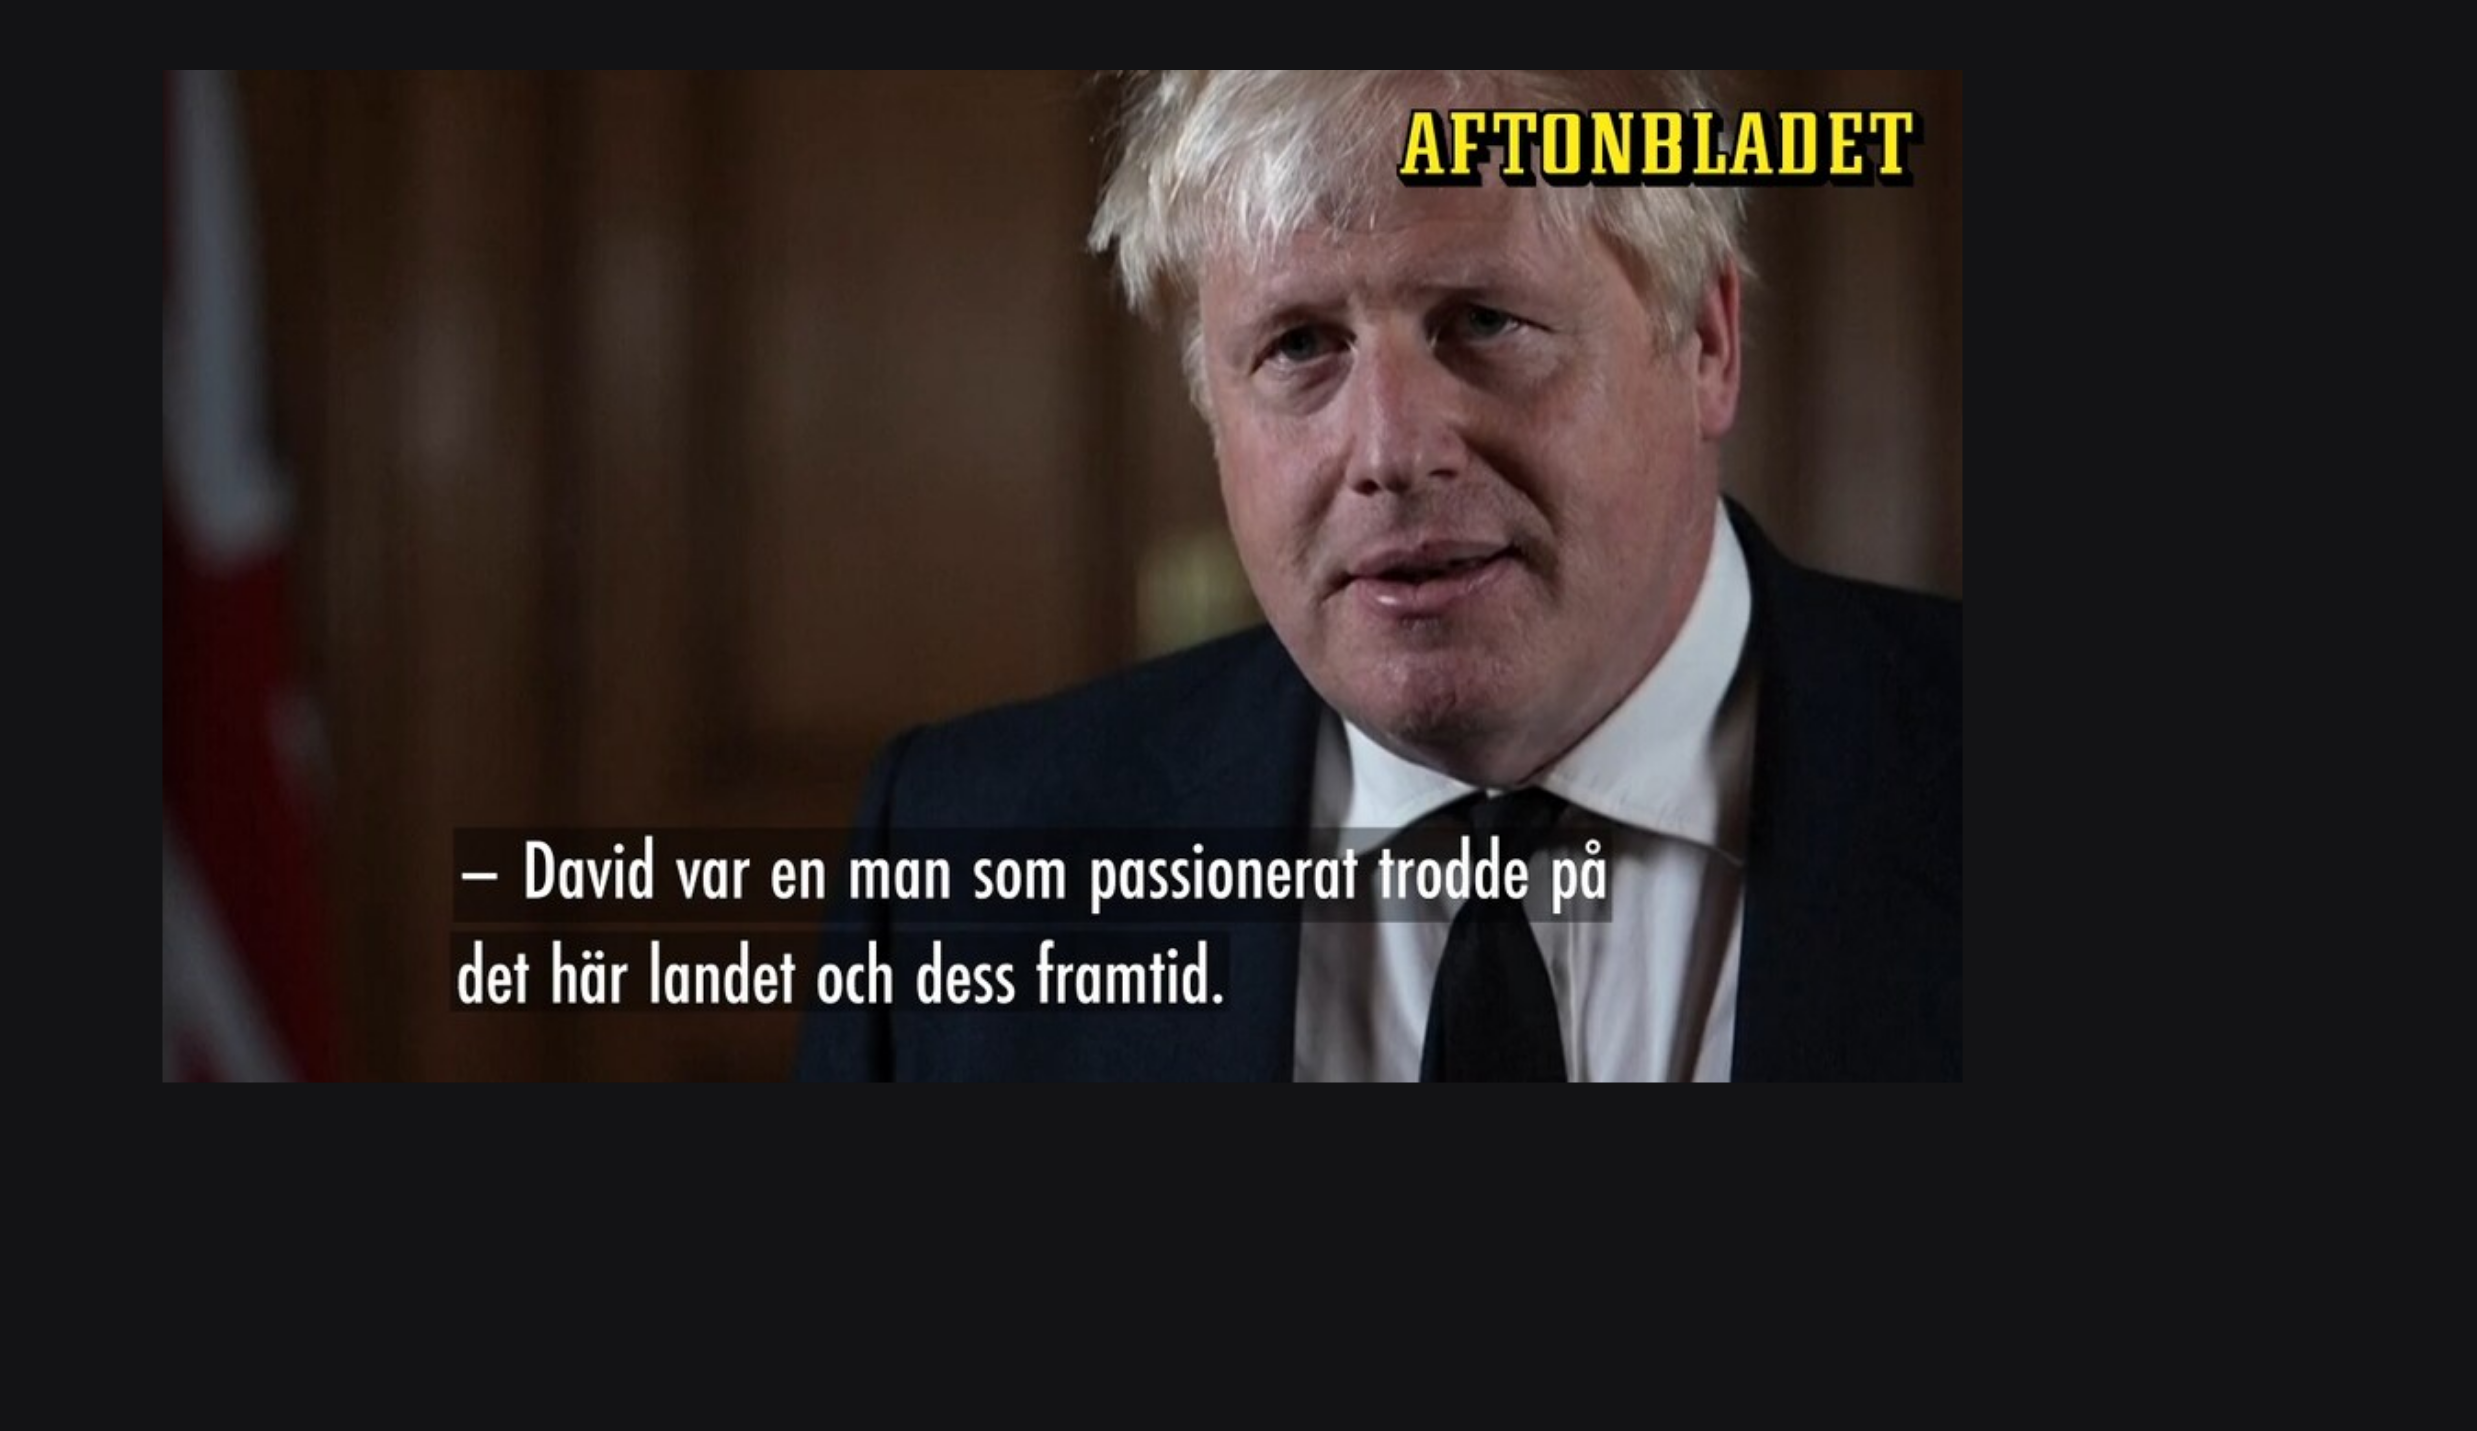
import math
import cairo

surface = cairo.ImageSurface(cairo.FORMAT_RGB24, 2477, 1431)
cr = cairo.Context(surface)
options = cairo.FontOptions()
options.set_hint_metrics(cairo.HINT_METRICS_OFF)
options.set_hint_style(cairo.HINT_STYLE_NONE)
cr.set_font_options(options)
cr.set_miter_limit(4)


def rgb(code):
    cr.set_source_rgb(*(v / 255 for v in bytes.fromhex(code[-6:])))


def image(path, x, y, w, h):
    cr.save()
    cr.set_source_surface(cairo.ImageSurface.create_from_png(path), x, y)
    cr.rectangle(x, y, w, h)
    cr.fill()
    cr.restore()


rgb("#131315")
cr.paint()
image("img/1.png", 162, 70, 1801, 1013)
surface.write_to_png("page.png")
